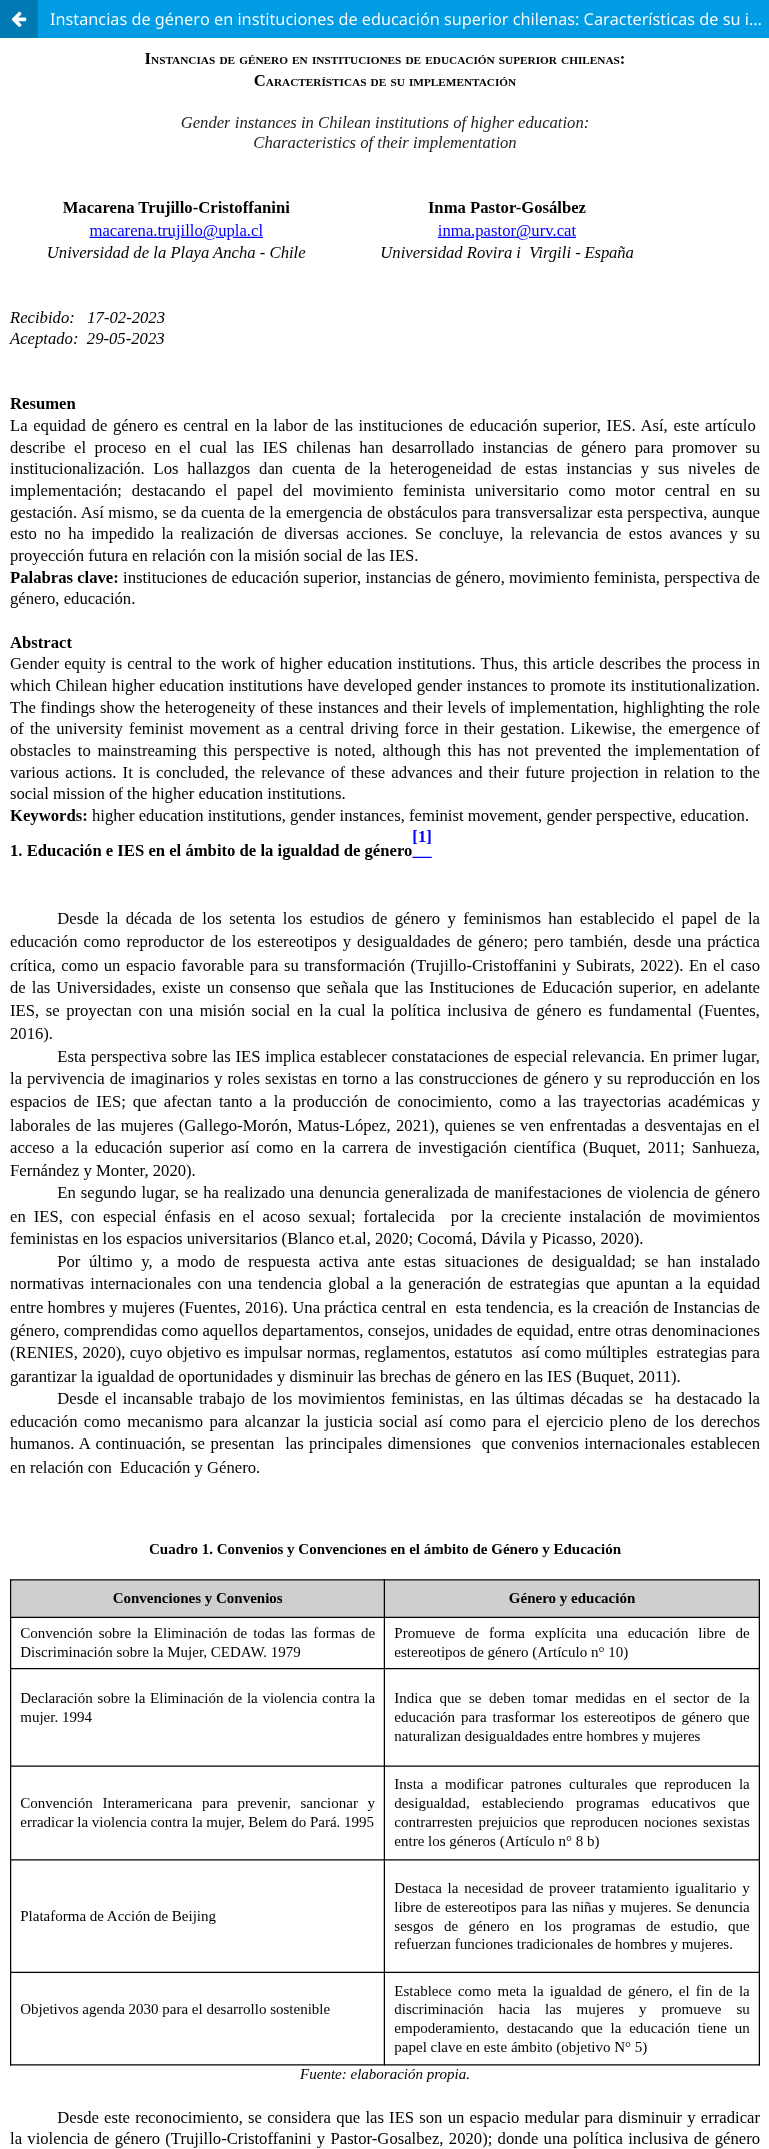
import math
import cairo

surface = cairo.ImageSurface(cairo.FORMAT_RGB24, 769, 2149)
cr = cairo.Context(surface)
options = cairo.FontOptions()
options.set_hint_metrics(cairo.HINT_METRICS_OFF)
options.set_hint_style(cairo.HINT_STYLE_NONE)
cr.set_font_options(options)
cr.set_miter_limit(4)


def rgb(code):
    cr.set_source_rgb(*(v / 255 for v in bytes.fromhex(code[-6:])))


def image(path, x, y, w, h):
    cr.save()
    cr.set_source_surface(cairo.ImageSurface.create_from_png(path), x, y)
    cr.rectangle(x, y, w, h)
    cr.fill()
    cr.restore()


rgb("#ffffff")
cr.paint()
rgb("#009de5")
cr.rectangle(38, 0, 731, 38)
cr.fill()
rgb("#007ab2")
cr.rectangle(0, 0, 38, 38)
cr.fill()
image("img/1.png", 11, 11, 16, 16)
image("img/2.png", 9, 53, 752, 2095)
cr.select_font_face("Noto Sans")
cr.set_font_size(16.25)
rgb("#ffffff")
cr.move_to(50, 25)
cr.show_text("Instancias de género en instituciones de educación superior chilenas: Características de su i…")
surface.write_to_png("page.png")
